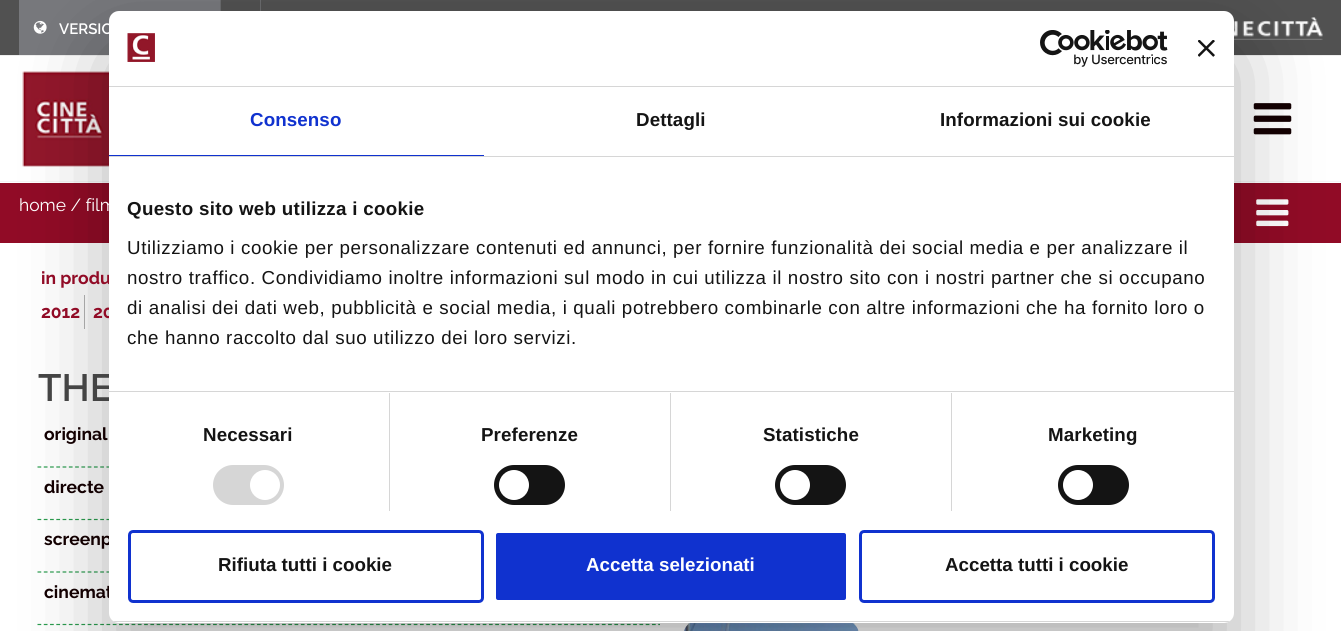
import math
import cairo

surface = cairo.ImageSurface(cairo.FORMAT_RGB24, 1341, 631)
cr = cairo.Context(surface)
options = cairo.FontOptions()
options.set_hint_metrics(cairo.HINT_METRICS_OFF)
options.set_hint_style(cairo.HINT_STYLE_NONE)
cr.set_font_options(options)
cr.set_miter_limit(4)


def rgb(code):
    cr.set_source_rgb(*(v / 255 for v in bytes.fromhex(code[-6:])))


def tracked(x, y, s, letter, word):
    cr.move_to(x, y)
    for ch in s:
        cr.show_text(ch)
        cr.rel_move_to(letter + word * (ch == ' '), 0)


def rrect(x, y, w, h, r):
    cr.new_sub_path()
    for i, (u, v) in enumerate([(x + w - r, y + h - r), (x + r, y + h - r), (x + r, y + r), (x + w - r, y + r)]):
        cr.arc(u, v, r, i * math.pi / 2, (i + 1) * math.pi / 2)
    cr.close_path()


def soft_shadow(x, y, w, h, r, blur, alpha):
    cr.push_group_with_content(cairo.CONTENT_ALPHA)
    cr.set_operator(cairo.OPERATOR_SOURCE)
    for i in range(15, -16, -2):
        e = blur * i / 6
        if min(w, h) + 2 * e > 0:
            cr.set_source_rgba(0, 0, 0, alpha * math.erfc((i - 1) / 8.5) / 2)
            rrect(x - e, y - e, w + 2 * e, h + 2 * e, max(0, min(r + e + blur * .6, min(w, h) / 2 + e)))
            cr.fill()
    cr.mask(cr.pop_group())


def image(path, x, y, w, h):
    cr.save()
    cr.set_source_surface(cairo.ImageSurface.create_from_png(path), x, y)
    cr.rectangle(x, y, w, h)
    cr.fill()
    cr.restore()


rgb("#ffffff")
cr.paint()
for x, y, w, h, color in [
    (0, 0, 1341, 55, "#515151"),
    (0, 55, 1341, 1, "#eeeeee"),
    (220, 0, 1, 11, "#6a6b6d"),
    (260, 0, 1, 11, "#6a6b6d"),
    (19, 0, 201, 55, "#77787c"),
]:
    rgb(color)
    cr.rectangle(x, y, w, h)
    cr.fill()
image("img/1.png", 33, 20, 14, 14)
image("img/2.png", 1234, 17, 89, 23)
rgb("#f5f5f5")
cr.rectangle(0, 181, 1341, 1)
cr.fill()
image("img/3.png", 20, 71, 89, 96)
image("img/4.png", 1253, 103, 39, 32)
rgb("#910b26")
cr.rectangle(0, 183, 1341, 60)
cr.fill()
image("img/5.png", 1256, 199, 33, 28)
rgb("#b3b3b3")
cr.rectangle(84, 295, 1, 34)
cr.fill()
cr.new_path()
cr.move_to(37.5, 467)
cr.line_to(869, 467)
rgb("#2a9c4e")
cr.set_line_width(1.2)
cr.set_dash([3.75, 2.52])
cr.stroke()
cr.new_path()
cr.move_to(37.5, 519.5)
cr.line_to(869, 519.5)
cr.stroke()
cr.new_path()
cr.move_to(37.5, 572)
cr.line_to(869, 572)
cr.stroke()
cr.new_path()
cr.move_to(37.5, 624.5)
cr.line_to(869, 624.5)
cr.stroke()
rgb("#ffffff")
cr.rectangle(660, 623, 209, 3)
cr.fill()
image("img/6.png", 684, 623, 175, 8)
rgb("#000000")
soft_shadow(109, 51, 1125, 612, 10, 42.5, 0.3)
cr.select_font_face("Raleway SemiBold")
cr.set_font_size(15)
rgb("#ffffff")
cr.move_to(59, 34)
cr.show_text("VERSIO")
cr.select_font_face("Raleway")
cr.set_font_size(17.5)
cr.move_to(19, 211)
cr.show_text("home / film")
cr.select_font_face("Raleway", cairo.FONT_SLANT_NORMAL, cairo.FONT_WEIGHT_BOLD)
rgb("#910b26")
for x, y, s in [
    (41, 284, "in produ"),
    (41, 318, "2012"),
    (93, 318, "20"),
]:
    cr.move_to(x, y)
    cr.show_text(s)
cr.select_font_face("Raleway SemiBold")
cr.set_font_size(38)
rgb("#444444")
cr.move_to(38, 401)
cr.show_text("THE")
cr.select_font_face("Raleway", cairo.FONT_SLANT_NORMAL, cairo.FONT_WEIGHT_BOLD)
cr.set_font_size(17.5)
rgb("#130001")
for x, y, s in [
    (44, 440, "original"),
    (44, 493, "directe"),
    (44, 545, "screenp"),
    (44, 598, "cinemat"),
]:
    cr.move_to(x, y)
    cr.show_text(s)
rgb("#ffffff")
rrect(109, 11, 1125, 612, 10)
cr.fill()
rgb("#d6d6d6")
cr.rectangle(109, 86, 1125, 1)
cr.fill()
image("img/7.png", 127, 33, 28, 29)
image("img/8.png", 1040, 30, 128, 37)
image("img/9.png", 1198, 40, 17, 17)
cr.rectangle(109, 156, 1125, 1)
cr.fill()
rgb("#1032cf")
cr.rectangle(109, 155, 375, 1)
cr.fill()
cr.select_font_face("Liberation Sans", cairo.FONT_SLANT_NORMAL, cairo.FONT_WEIGHT_BOLD)
cr.set_font_size(18.75)
tracked(250, 126, "Consenso", 0.1, 0)
rgb("#141414")
tracked(636, 126, "Dettagli", 0.1, 0)
tracked(940, 126, "Informazioni sui cookie", 0.1, 0)
rgb("#d6d6d6")
cr.rectangle(109, 391, 1125, 1)
cr.fill()
rgb("#141414")
tracked(127, 215, "Questo sito web utilizza i cookie", 0.3, 0)
cr.select_font_face("Liberation Sans")
for x, y, s in [
    (127, 254, "Utilizziamo i cookie per personalizzare contenuti ed annunci, per fornire funzionalità dei social media e per analizzare il"),
    (127, 284, "nostro traffico. Condividiamo inoltre informazioni sul modo in cui utilizza il nostro sito con i nostri partner che si occupano"),
    (127, 314, "di analisi dei dati web, pubblicità e social media, i quali potrebbero combinarle con altre informazioni che ha fornito loro o"),
    (127, 344, "che hanno raccolto dal suo utilizzo dei loro servizi."),
]:
    tracked(x, y, s, 0.62, 0)
rgb("#d6d6d6")
cr.rectangle(389, 393, 1, 118)
cr.fill()
cr.select_font_face("Liberation Sans", cairo.FONT_SLANT_NORMAL, cairo.FONT_WEIGHT_BOLD)
rgb("#141414")
tracked(203, 441, "Necessari", 0.1, 0)
rgb("#d6d6d6")
rrect(213, 465, 71, 40, 20)
cr.fill()
rgb("#ffffff")
cr.arc(265, 485, 15, 0, 2 * math.pi)
cr.fill()
rgb("#d6d6d6")
cr.rectangle(670, 393, 1, 118)
cr.fill()
rgb("#141414")
tracked(481, 441, "Preferenze", 0.1, 0)
rrect(494, 465, 71, 40, 20)
cr.fill()
rgb("#ffffff")
cr.arc(514, 485, 15, 0, 2 * math.pi)
cr.fill()
rgb("#d6d6d6")
cr.rectangle(951, 393, 1, 118)
cr.fill()
rgb("#141414")
tracked(763, 441, "Statistiche", 0.1, 0)
rrect(775, 465, 71, 40, 20)
cr.fill()
rgb("#ffffff")
cr.arc(795, 485, 15, 0, 2 * math.pi)
cr.fill()
rgb("#141414")
tracked(1048, 441, "Marketing", 0.1, 0)
rrect(1058, 465, 71, 40, 20)
cr.fill()
rgb("#ffffff")
cr.arc(1078, 485, 15, 0, 2 * math.pi)
cr.fill()
cr.save()
rrect(109, 11, 1125, 612, 10)
cr.clip()
rgb("#d6d6d6")
cr.rectangle(109, 621, 1125, 1)
cr.fill()
cr.restore()
rrect(129.5, 531.5, 353, 70, 3.5)
rgb("#1032cf")
cr.set_line_width(3)
cr.set_dash([])
cr.stroke()
rgb("#141414")
cr.move_to(218, 571)
cr.show_text("Rifiuta tutti i cookie")
rgb("#1032cf")
rrect(494.5, 531.5, 353, 70, 3.5)
cr.fill_preserve()
rgb("#ffffff")
cr.stroke()
cr.move_to(586, 571)
cr.show_text("Accetta selezionati")
rrect(860.5, 531.5, 353, 70, 3.5)
rgb("#1032cf")
cr.stroke()
rgb("#141414")
cr.move_to(945, 571)
cr.show_text("Accetta tutti i cookie")
surface.write_to_png("page.png")
